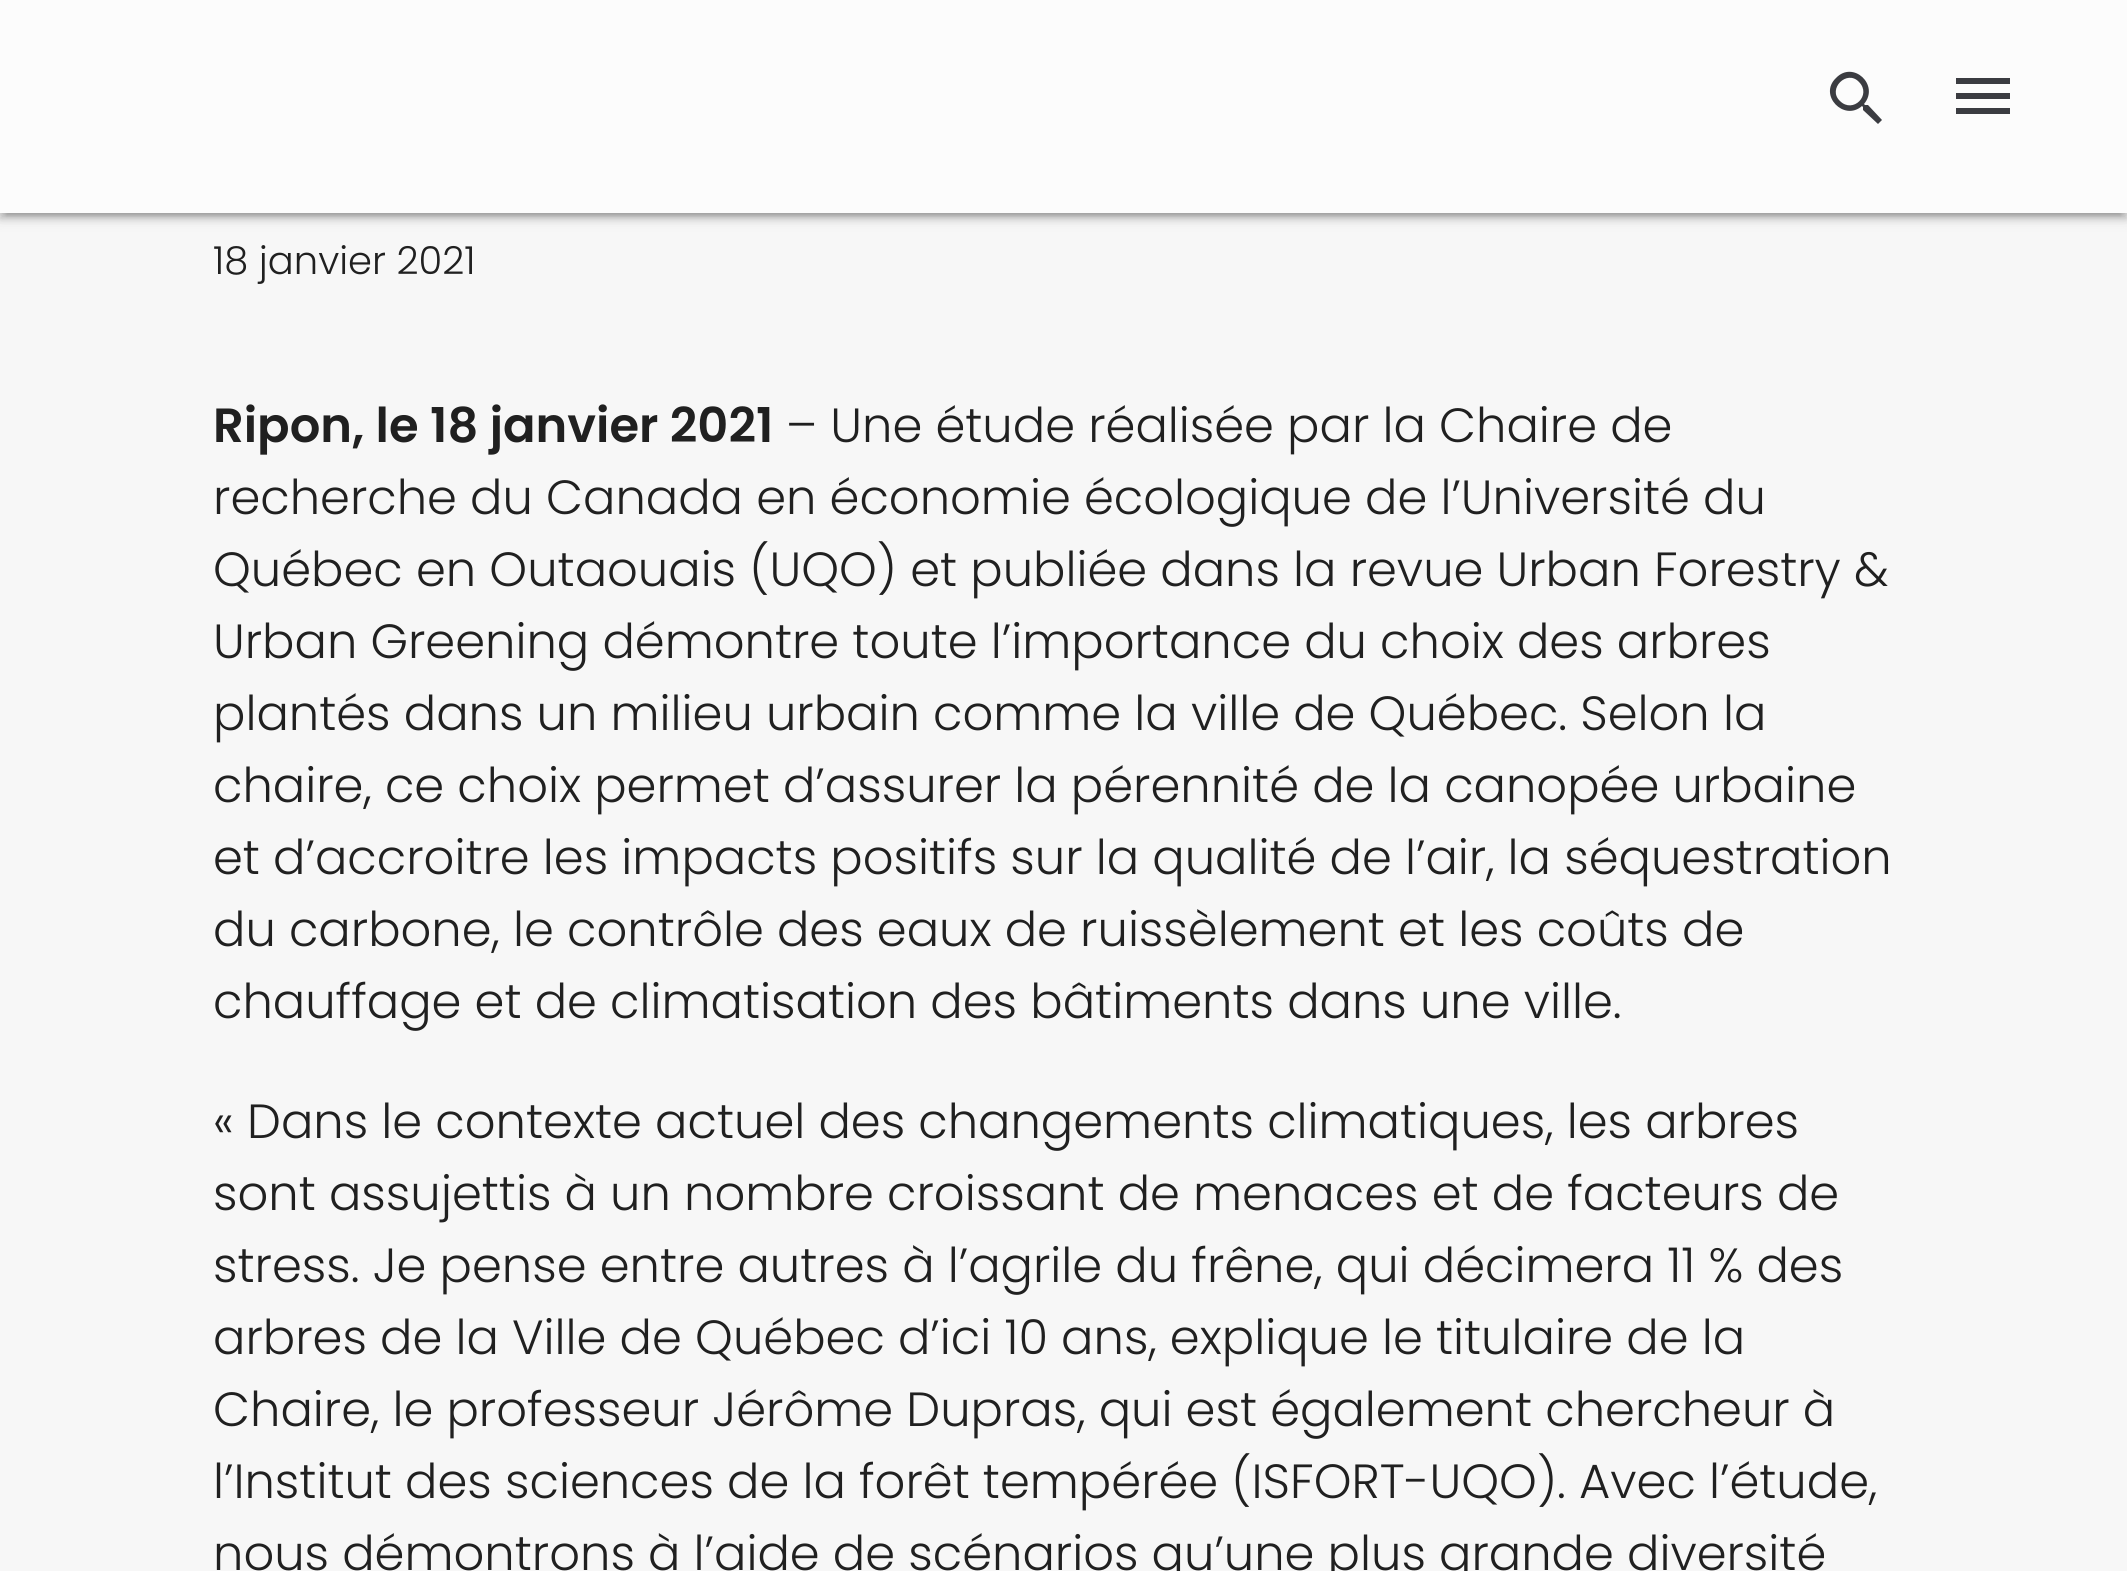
import math
import cairo

surface = cairo.ImageSurface(cairo.FORMAT_RGB24, 2127, 1571)
cr = cairo.Context(surface)
options = cairo.FontOptions()
options.set_hint_metrics(cairo.HINT_METRICS_OFF)
options.set_hint_style(cairo.HINT_STYLE_NONE)
cr.set_font_options(options)
cr.set_miter_limit(4)


def rgb(code):
    cr.set_source_rgb(*(v / 255 for v in bytes.fromhex(code[-6:])))


def rrect(x, y, w, h, r):
    cr.new_sub_path()
    for i, (u, v) in enumerate([(x + w - r, y + h - r), (x + r, y + h - r), (x + r, y + r), (x + w - r, y + r)]):
        cr.arc(u, v, r, i * math.pi / 2, (i + 1) * math.pi / 2)
    cr.close_path()


def soft_shadow(x, y, w, h, r, blur, alpha):
    cr.push_group_with_content(cairo.CONTENT_ALPHA)
    cr.set_operator(cairo.OPERATOR_SOURCE)
    for i in range(15, -16, -2):
        e = blur * i / 6
        if min(w, h) + 2 * e > 0:
            cr.set_source_rgba(0, 0, 0, alpha * math.erfc((i - 1) / 8.5) / 2)
            rrect(x - e, y - e, w + 2 * e, h + 2 * e, max(0, min(r + e + blur * .6, min(w, h) / 2 + e)))
            cr.fill()
    cr.mask(cr.pop_group())


rgb("#f7f7f7")
cr.paint()
rgb("#000000")
soft_shadow(0, 3, 2127, 213, 0, 7.5, 0.2)
soft_shadow(6, 15, 2115, 201, 0, 1.5, 0.12)
soft_shadow(0, 6, 2127, 213, 0, 3, 0.14)
rgb("#fcfcfc")
cr.rectangle(0, 0, 2127, 213)
cr.fill()
rgb("#3b3c41")
cr.new_path()
cr.move_to(1840, 101)
cr.curve_to(1853, 114, 1872, 95, 1859, 82)
cr.curve_to(1847, 69, 1827, 89, 1840, 101)
cr.close_path()
cr.move_to(1868, 105)
cr.line_to(1882, 120)
cr.line_to(1878, 124)
cr.line_to(1863, 110)
cr.line_to(1863, 107)
cr.line_to(1862, 106)
cr.curve_to(1844, 122, 1818, 95, 1836, 78)
cr.curve_to(1853, 60, 1880, 85, 1864, 104)
cr.line_to(1865, 105)
cr.close_path()
cr.fill()
cr.new_path()
cr.move_to(1956, 78)
cr.line_to(2010, 78)
cr.line_to(2010, 84)
cr.line_to(1956, 84)
cr.close_path()
cr.move_to(1956, 99)
cr.line_to(1956, 93)
cr.line_to(2010, 93)
cr.line_to(2010, 99)
cr.close_path()
cr.move_to(1956, 114)
cr.line_to(1956, 108)
cr.line_to(2010, 108)
cr.line_to(2010, 114)
cr.close_path()
cr.fill()
cr.select_font_face("Poppins Light")
cr.set_font_size(38.5)
rgb("#202020")
cr.move_to(213, 274)
cr.show_text("18 janvier 2021")
cr.select_font_face("Poppins SemiBold")
cr.set_font_size(48)
cr.move_to(213, 442)
cr.show_text("Ripon, le 18 janvier 2021")
cr.select_font_face("Poppins Light")
for x, y, s in [
    (786, 442, "– Une étude réalisée par la Chaire de"),
    (213, 514, "recherche du Canada en économie écologique de l’Université du"),
    (213, 586, "Québec en Outaouais (UQO) et publiée dans la revue Urban Forestry &"),
    (213, 658, "Urban Greening démontre toute l’importance du choix des arbres"),
    (213, 730, "plantés dans un milieu urbain comme la ville de Québec. Selon la"),
    (213, 802, "chaire, ce choix permet d’assurer la pérennité de la canopée urbaine"),
    (213, 874, "et d’accroitre les impacts positifs sur la qualité de l’air, la séquestration"),
    (213, 946, "du carbone, le contrôle des eaux de ruissèlement et les coûts de"),
    (213, 1018, "chauffage et de climatisation des bâtiments dans une ville."),
    (213, 1138, "« Dans le contexte actuel des changements climatiques, les arbres"),
    (213, 1210, "sont assujettis à un nombre croissant de menaces et de facteurs de"),
    (213, 1282, "stress. Je pense entre autres à l’agrile du frêne, qui décimera 11 % des"),
    (213, 1354, "arbres de la Ville de Québec d’ici 10 ans, explique le titulaire de la"),
    (213, 1426, "Chaire, le professeur Jérôme Dupras, qui est également chercheur à"),
    (213, 1498, "l’Institut des sciences de la forêt tempérée (ISFORT-UQO). Avec l’étude,"),
    (213, 1570, "nous démontrons à l’aide de scénarios qu’une plus grande diversité"),
]:
    cr.move_to(x, y)
    cr.show_text(s)
surface.write_to_png("page.png")
